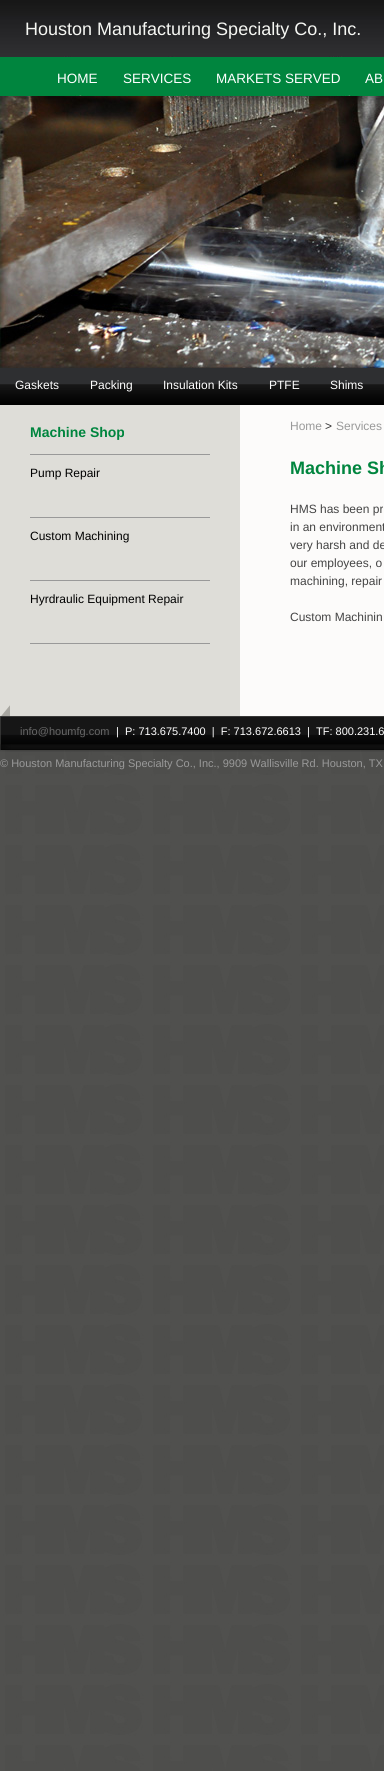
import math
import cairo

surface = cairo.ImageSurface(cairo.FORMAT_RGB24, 384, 1771)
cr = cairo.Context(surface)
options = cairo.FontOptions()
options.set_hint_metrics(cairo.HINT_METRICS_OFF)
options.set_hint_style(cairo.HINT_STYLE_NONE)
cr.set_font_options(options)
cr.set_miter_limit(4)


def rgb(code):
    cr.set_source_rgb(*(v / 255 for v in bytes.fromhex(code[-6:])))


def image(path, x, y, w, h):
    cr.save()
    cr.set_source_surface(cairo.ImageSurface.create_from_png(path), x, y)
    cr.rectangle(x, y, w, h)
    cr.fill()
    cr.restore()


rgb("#ffffff")
cr.paint()
image("img/1.png", 0, 716, 384, 1055)
image("img/2.png", 0, 0, 384, 405)
for x, y, w, h, color in [
    (0, 57, 384, 38, "#00853e"),
    (0, 405, 240, 311, "#deddd8"),
    (30, 454, 180, 1, "#999999"),
    (30, 517, 180, 1, "#999999"),
    (30, 580, 180, 1, "#999999"),
    (30, 643, 180, 1, "#999999"),
    (240, 405, 144, 311, "#fcfbfa"),
]:
    rgb(color)
    cr.rectangle(x, y, w, h)
    cr.fill()
image("img/3.png", 0, 716, 384, 34)
image("img/4.png", 1, 705, 9, 11)
image("img/5.png", 0, 744, 384, 8)
cr.select_font_face("Liberation Sans")
cr.set_font_size(18)
rgb("#f6f7f3")
cr.move_to(25, 35)
cr.show_text("Houston Manufacturing Specialty Co., Inc.")
cr.set_font_size(13.5)
rgb("#ffffff")
for x, y, s in [
    (57, 83, "HOME"),
    (123, 83, "SERVICES"),
    (216, 83, "MARKETS SERVED"),
    (365, 83, "AB"),
]:
    cr.move_to(x, y)
    cr.show_text(s)
cr.set_font_size(12)
for x, y, s in [
    (15, 389, "Gaskets"),
    (90, 389, "Packing"),
    (163, 389, "Insulation Kits"),
    (269, 389, "PTFE"),
    (330, 389, "Shims"),
]:
    cr.move_to(x, y)
    cr.show_text(s)
cr.select_font_face("Liberation Sans", cairo.FONT_SLANT_NORMAL, cairo.FONT_WEIGHT_BOLD)
cr.set_font_size(14)
rgb("#00853e")
cr.move_to(30, 437)
cr.show_text("Machine Shop")
cr.select_font_face("Liberation Sans")
cr.set_font_size(12)
rgb("#000000")
for x, y, s in [
    (30, 477, "Pump Repair"),
    (30, 540, "Custom Machining"),
    (30, 603, "Hyrdraulic Equipment Repair"),
]:
    cr.move_to(x, y)
    cr.show_text(s)
rgb("#999999")
cr.move_to(290, 430)
cr.show_text("Home")
rgb("#333333")
cr.move_to(325, 430)
cr.show_text(">")
rgb("#999999")
cr.move_to(336, 430)
cr.show_text("Services")
cr.select_font_face("Liberation Sans", cairo.FONT_SLANT_NORMAL, cairo.FONT_WEIGHT_BOLD)
cr.set_font_size(18)
rgb("#00853e")
cr.move_to(290, 474)
cr.show_text("Machine Sh")
cr.select_font_face("Liberation Sans")
cr.set_font_size(12)
rgb("#444444")
for x, y, s in [
    (290, 513, "HMS has been pr"),
    (290, 531, "in an environment"),
    (290, 549, "very harsh and de"),
    (290, 567, "our employees, o"),
    (290, 585, "machining, repair"),
    (290, 621, "Custom Machinin"),
]:
    cr.move_to(x, y)
    cr.show_text(s)
cr.set_font_size(11)
rgb("#666666")
cr.move_to(20, 735)
cr.show_text("info@houmfg.com")
rgb("#ffffff")
cr.move_to(116, 735)
cr.show_text("|  P: 713.675.7400  |  F: 713.672.6613  |  TF: 800.231.6")
rgb("#999999")
cr.move_to(0, 767)
cr.show_text("© Houston Manufacturing Specialty Co., Inc., 9909 Wallisville Rd. Houston, TX")
surface.write_to_png("page.png")
